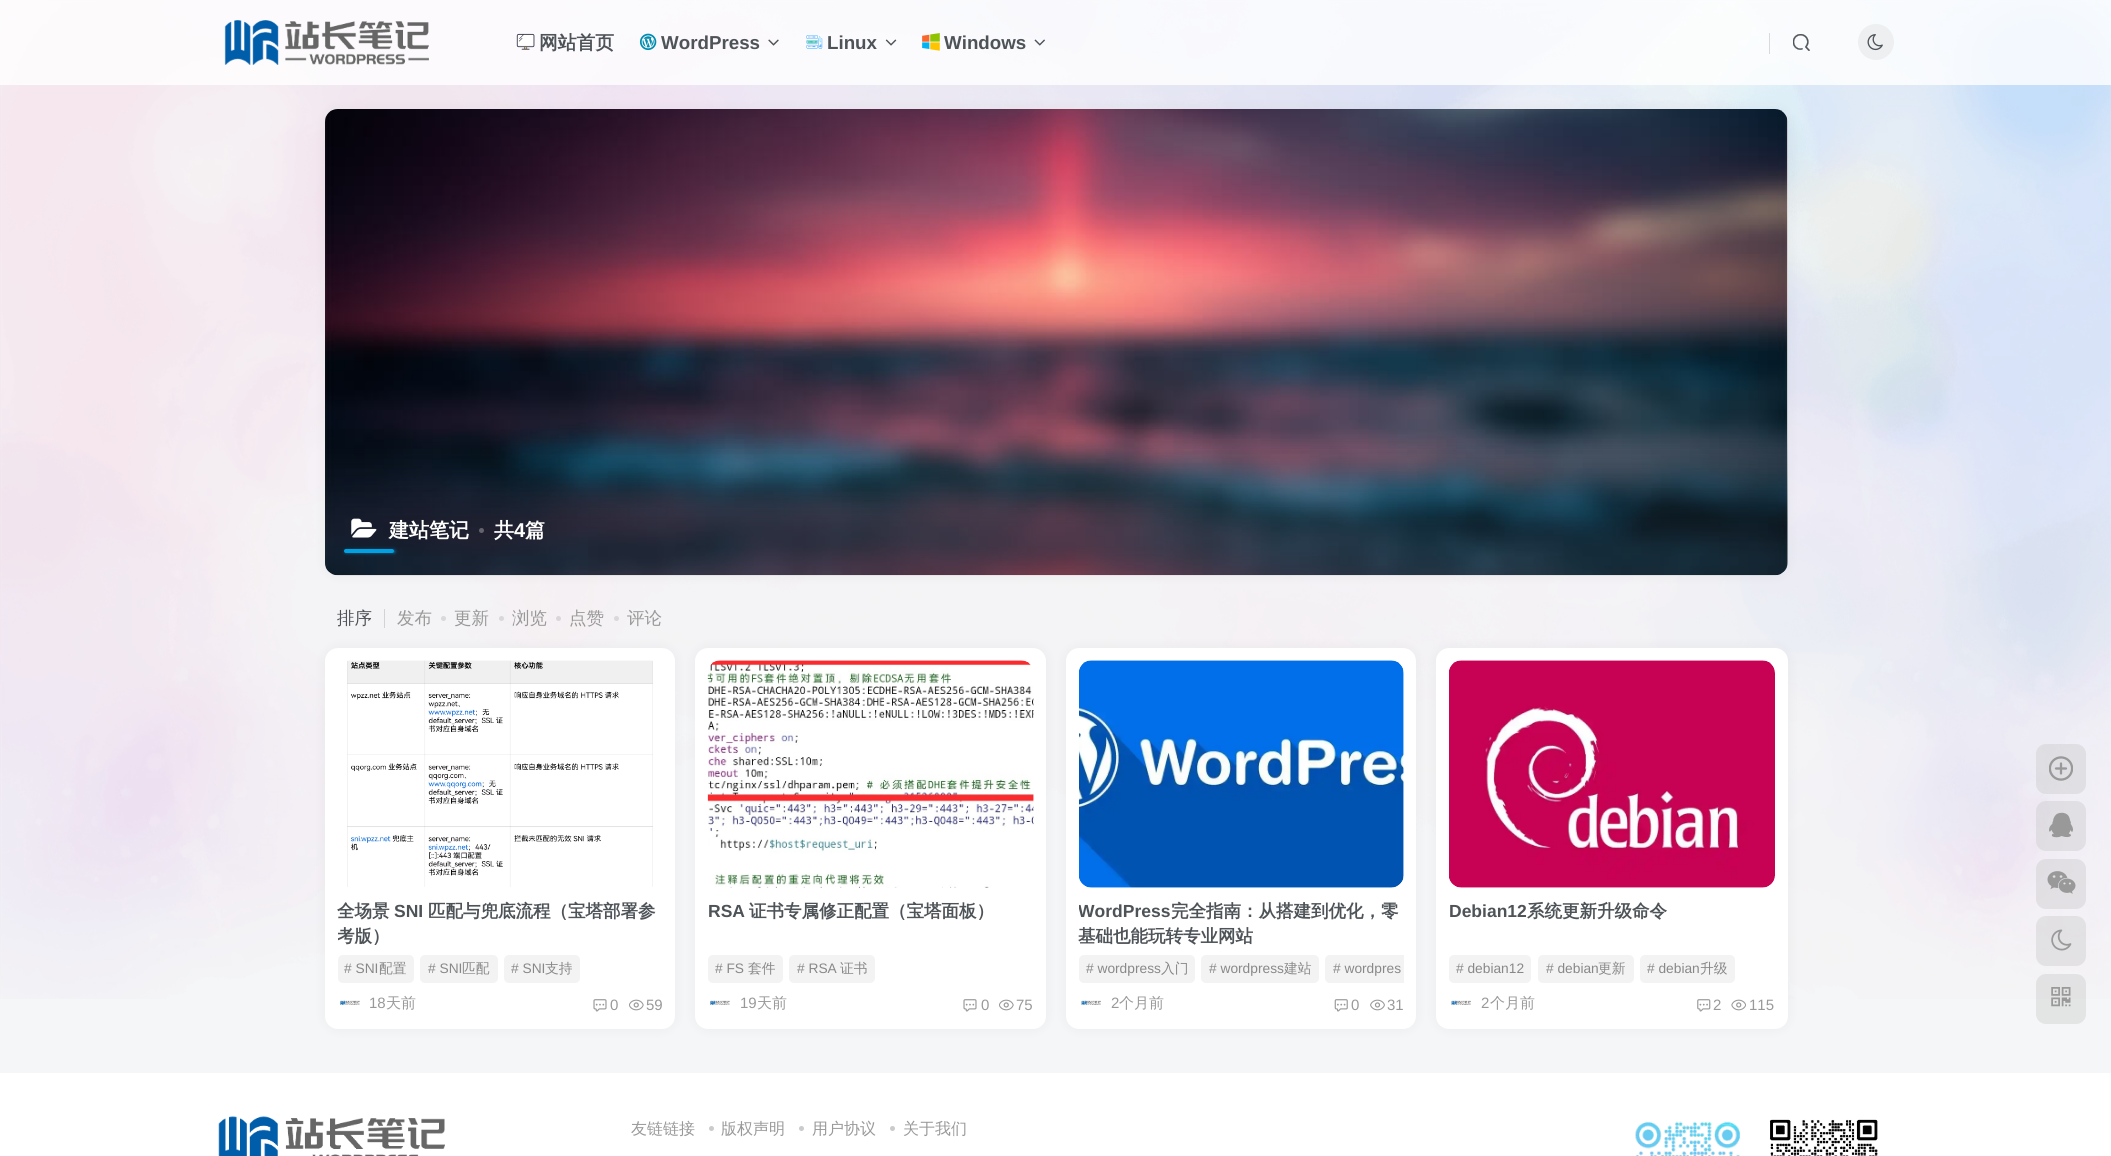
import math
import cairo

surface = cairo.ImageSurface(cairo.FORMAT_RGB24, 2111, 1156)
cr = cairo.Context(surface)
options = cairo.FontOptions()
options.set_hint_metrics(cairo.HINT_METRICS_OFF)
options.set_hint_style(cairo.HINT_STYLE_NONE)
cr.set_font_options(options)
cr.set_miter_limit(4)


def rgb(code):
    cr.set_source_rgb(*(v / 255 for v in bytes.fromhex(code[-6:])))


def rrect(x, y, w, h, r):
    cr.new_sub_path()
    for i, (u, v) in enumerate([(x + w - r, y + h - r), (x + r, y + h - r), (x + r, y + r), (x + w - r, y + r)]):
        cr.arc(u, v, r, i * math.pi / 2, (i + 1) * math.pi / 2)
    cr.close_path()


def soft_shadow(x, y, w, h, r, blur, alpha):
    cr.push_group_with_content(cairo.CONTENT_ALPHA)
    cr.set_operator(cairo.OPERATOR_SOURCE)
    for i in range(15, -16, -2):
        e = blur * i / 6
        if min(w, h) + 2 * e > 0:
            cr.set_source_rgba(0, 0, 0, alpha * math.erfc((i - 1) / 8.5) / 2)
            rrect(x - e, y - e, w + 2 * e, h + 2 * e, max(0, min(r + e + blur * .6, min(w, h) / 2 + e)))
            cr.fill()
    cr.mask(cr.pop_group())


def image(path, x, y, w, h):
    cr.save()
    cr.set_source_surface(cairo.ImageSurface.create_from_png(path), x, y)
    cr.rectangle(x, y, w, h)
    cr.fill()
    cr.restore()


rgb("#f5f6f7")
cr.paint()
image("img/1.png", 0, 0, 2111, 999)
cr.set_source_rgba(1, 1, 1, 0.8)
cr.rectangle(0, 0, 2111, 85)
cr.fill()
image("img/2.png", 224, 20, 205, 45)
image("img/3.png", 516, 33, 19, 17)
image("img/4.png", 639, 33, 18, 18)
image("img/5.png", 768, 39, 11, 7)
image("img/6.png", 806, 35, 17, 14)
image("img/7.png", 885, 39, 12, 7)
image("img/8.png", 922, 33, 18, 18)
image("img/9.png", 1034, 39, 11, 7)
rgb("#d8dadc")
cr.rectangle(1769, 33, 1, 21)
cr.fill()
image("img/10.png", 1793, 34, 17, 17)
rgb("#edeff1")
cr.arc(1876, 42, 18, 0, 2 * math.pi)
cr.fill()
image("img/11.png", 1867, 34, 16, 17)
rgb("#747474")
soft_shadow(325, 109, 1463, 466, 13, 6, 0.08)
rgb("#ffffff")
rrect(325, 109, 1463, 466, 13)
cr.fill()
image("img/12.png", 325, 109, 1463, 467)
gradient = cairo.LinearGradient(1056, 575, 1056, 109)
gradient.add_color_stop_rgba(0.11, 0.114, 0.161, 0.192, 0.4)
gradient.add_color_stop_rgba(0.3, 0.114, 0.161, 0.192, 0)
cr.set_source(gradient)
rrect(325, 109, 1463, 466, 13)
cr.fill()
image("img/13.png", 351, 518, 26, 20)
rgb("#63636e")
cr.arc(481.5, 530.5, 2.5, 0, 2 * math.pi)
cr.fill()
rgb("#00a2e3")
soft_shadow(346, 551, 48, 1, 0.5, 2, 1)
rgb("#00a2e3")
rrect(344, 549, 50, 4, 2)
cr.fill()
rgb("#d3d3d6")
cr.rectangle(384, 609, 1, 19)
cr.fill()
rgb("#d9d8da")
cr.arc(443.5, 618.5, 2.5, 0, 2 * math.pi)
cr.fill()
rgb("#d9d8d9")
cr.arc(501.5, 618.5, 2.5, 0, 2 * math.pi)
cr.fill()
rgb("#d9d6d8")
cr.arc(558.5, 618.5, 2.5, 0, 2 * math.pi)
cr.fill()
rgb("#d9d8da")
cr.arc(616.5, 618.5, 2.5, 0, 2 * math.pi)
cr.fill()
rgb("#747474")
soft_shadow(325, 648, 350, 381, 13, 6, 0.08)
rgb("#ffffff")
rrect(325, 648, 350, 381, 13)
cr.fill()
image("img/14.png", 347, 660, 306, 227)
rgb("#f3f3f3")
rrect(338, 955, 76, 28, 5)
cr.fill()
rrect(420, 955, 78, 28, 5)
cr.fill()
rrect(504, 955, 76, 28, 5)
cr.fill()
image("img/15.png", 340, 1000, 20, 5)
image("img/16.png", 593, 999, 14, 13)
image("img/17.png", 629, 999, 15, 12)
rgb("#747474")
soft_shadow(695, 648, 351, 381, 13, 6, 0.08)
rgb("#ffffff")
rrect(695, 648, 351, 381, 13)
cr.fill()
image("img/18.png", 707, 660, 327, 228)
rgb("#f3f3f3")
rrect(708, 955, 75, 28, 5)
cr.fill()
rrect(789, 955, 86, 28, 5)
cr.fill()
image("img/15.png", 710, 1000, 20, 5)
image("img/16.png", 963, 999, 14, 13)
image("img/17.png", 999, 999, 15, 12)
rgb("#747474")
soft_shadow(1066, 648, 350, 381, 13, 6, 0.08)
rgb("#ffffff")
rrect(1066, 648, 350, 381, 13)
cr.fill()
image("img/19.png", 1079, 660, 325, 228)
rgb("#f3f3f3")
rrect(1079, 955, 116, 28, 5)
cr.fill()
rrect(1201, 955, 118, 28, 5)
cr.fill()
cr.new_path()
cr.move_to(1330, 955)
cr.line_to(1404, 955)
cr.line_to(1404, 983)
cr.line_to(1330, 983)
cr.curve_to(1327, 983, 1325, 981, 1325, 978)
cr.line_to(1325, 960)
cr.curve_to(1325, 957, 1327, 955, 1330, 955)
cr.close_path()
cr.fill()
image("img/20.png", 1081, 1000, 20, 5)
image("img/21.png", 1334, 999, 14, 13)
image("img/22.png", 1370, 999, 15, 12)
rgb("#747474")
soft_shadow(1436, 648, 352, 381, 13, 6, 0.08)
rgb("#ffffff")
rrect(1436, 648, 352, 381, 13)
cr.fill()
image("img/23.png", 1449, 660, 326, 228)
rgb("#f3f3f3")
rrect(1449, 955, 82, 28, 5)
cr.fill()
rrect(1538, 955, 96, 28, 5)
cr.fill()
rrect(1640, 955, 95, 28, 5)
cr.fill()
image("img/24.png", 1451, 1000, 20, 5)
image("img/25.png", 1697, 999, 14, 13)
image("img/26.png", 1731, 999, 15, 12)
cr.set_source_rgba(0.784, 0.784, 0.784, 0.4)
rrect(2036, 744, 50, 50, 10)
cr.fill()
image("img/27.png", 2049, 756, 24, 25)
rrect(2036, 801, 50, 50, 10)
cr.fill()
image("img/28.png", 2049, 812, 24, 26)
rrect(2036, 859, 50, 50, 10)
cr.fill()
image("img/29.png", 2047, 871, 29, 23)
rrect(2036, 916, 50, 50, 10)
cr.fill()
image("img/30.png", 2051, 929, 21, 22)
rrect(2036, 974, 50, 50, 10)
cr.fill()
image("img/31.png", 2051, 987, 20, 20)
rgb("#ffffff")
cr.rectangle(0, 1073, 2111, 83)
cr.fill()
image("img/32.png", 218, 1116, 227, 40)
rgb("#cacbcd")
cr.arc(711.5, 1128.5, 2.5, 0, 2 * math.pi)
cr.fill()
cr.arc(801.5, 1128.5, 2.5, 0, 2 * math.pi)
cr.fill()
cr.arc(892.5, 1128.5, 2.5, 0, 2 * math.pi)
cr.fill()
image("img/33.png", 1635, 1121, 105, 35)
image("img/34.png", 1769, 1119, 109, 37)
cr.select_font_face("WenQuanYi Zen Hei", cairo.FONT_SLANT_NORMAL, cairo.FONT_WEIGHT_BOLD)
cr.set_font_size(18.75)
rgb("#4e5358")
cr.move_to(539, 49)
cr.show_text("网站首页")
cr.select_font_face("Liberation Sans", cairo.FONT_SLANT_NORMAL, cairo.FONT_WEIGHT_BOLD)
for x, y, s in [
    (661, 49, "WordPress"),
    (827, 49, "Linux"),
    (944, 49, "Windows"),
]:
    cr.move_to(x, y)
    cr.show_text(s)
cr.select_font_face("WenQuanYi Zen Hei", cairo.FONT_SLANT_NORMAL, cairo.FONT_WEIGHT_BOLD)
cr.set_font_size(20)
rgb("#ffffff")
cr.move_to(389, 537)
cr.show_text("建站笔记")
cr.move_to(494, 537)
cr.show_text("共")
cr.select_font_face("Liberation Sans", cairo.FONT_SLANT_NORMAL, cairo.FONT_WEIGHT_BOLD)
cr.move_to(514, 537)
cr.show_text("4")
cr.select_font_face("WenQuanYi Zen Hei", cairo.FONT_SLANT_NORMAL, cairo.FONT_WEIGHT_BOLD)
cr.move_to(525, 537)
cr.show_text("篇")
cr.select_font_face("WenQuanYi Zen Hei Medium")
cr.set_font_size(17.5)
rgb("#4e5358")
cr.move_to(337, 624)
cr.show_text("排序")
rgb("#999999")
for x, y, s in [
    (397, 624, "发布"),
    (454, 624, "更新"),
    (512, 624, "浏览"),
    (569, 624, "点赞"),
    (627, 624, "评论"),
]:
    cr.move_to(x, y)
    cr.show_text(s)
cr.select_font_face("WenQuanYi Zen Hei", cairo.FONT_SLANT_NORMAL, cairo.FONT_WEIGHT_BOLD)
rgb("#4e5358")
cr.move_to(337, 917)
cr.show_text("全场景")
cr.select_font_face("Liberation Sans", cairo.FONT_SLANT_NORMAL, cairo.FONT_WEIGHT_BOLD)
cr.move_to(394, 917)
cr.show_text("SNI")
cr.select_font_face("WenQuanYi Zen Hei", cairo.FONT_SLANT_NORMAL, cairo.FONT_WEIGHT_BOLD)
cr.move_to(428, 917)
cr.show_text("匹配与兜底流程（宝塔部署参")
cr.save()
cr.rectangle(338, 900, 325, 49)
cr.clip()
cr.move_to(337, 942)
cr.show_text("考版）")
cr.restore()
cr.select_font_face("Liberation Sans")
cr.set_font_size(13.75)
rgb("#888888")
cr.move_to(344, 973)
cr.show_text("# SNI")
cr.select_font_face("WenQuanYi Zen Hei Medium")
cr.move_to(379, 973)
cr.show_text("配置")
cr.select_font_face("Liberation Sans")
cr.move_to(428, 973)
cr.show_text("# SNI")
cr.select_font_face("WenQuanYi Zen Hei Medium")
cr.move_to(462, 973)
cr.show_text("匹配")
cr.select_font_face("Liberation Sans")
cr.move_to(511, 973)
cr.show_text("# SNI")
cr.select_font_face("WenQuanYi Zen Hei Medium")
cr.move_to(545, 973)
cr.show_text("支持")
cr.select_font_face("Liberation Sans")
cr.set_font_size(15)
rgb("#999999")
cr.move_to(369, 1008)
cr.show_text("18")
cr.select_font_face("WenQuanYi Zen Hei Medium")
cr.move_to(386, 1008)
cr.show_text("天前")
cr.select_font_face("Liberation Sans")
cr.move_to(610, 1010)
cr.show_text("0")
cr.move_to(646, 1010)
cr.show_text("59")
cr.select_font_face("Liberation Sans", cairo.FONT_SLANT_NORMAL, cairo.FONT_WEIGHT_BOLD)
cr.set_font_size(17.5)
rgb("#4e5358")
cr.move_to(708, 917)
cr.show_text("RSA")
cr.select_font_face("WenQuanYi Zen Hei", cairo.FONT_SLANT_NORMAL, cairo.FONT_WEIGHT_BOLD)
cr.move_to(749, 917)
cr.show_text("证书专属修正配置（宝塔面板）")
cr.select_font_face("Liberation Sans")
cr.set_font_size(13.75)
rgb("#888888")
cr.move_to(715, 973)
cr.show_text("# FS")
cr.select_font_face("WenQuanYi Zen Hei Medium")
cr.move_to(748, 973)
cr.show_text("套件")
cr.select_font_face("Liberation Sans")
cr.move_to(797, 973)
cr.show_text("# RSA")
cr.select_font_face("WenQuanYi Zen Hei Medium")
cr.move_to(840, 973)
cr.show_text("证书")
cr.select_font_face("Liberation Sans")
cr.set_font_size(15)
rgb("#999999")
cr.move_to(740, 1008)
cr.show_text("19")
cr.select_font_face("WenQuanYi Zen Hei Medium")
cr.move_to(757, 1008)
cr.show_text("天前")
cr.select_font_face("Liberation Sans")
cr.move_to(981, 1010)
cr.show_text("0")
cr.move_to(1016, 1010)
cr.show_text("75")
cr.save()
cr.rectangle(1079, 900, 325, 49)
cr.clip()
cr.select_font_face("Liberation Sans", cairo.FONT_SLANT_NORMAL, cairo.FONT_WEIGHT_BOLD)
cr.set_font_size(17.5)
rgb("#4e5358")
cr.move_to(1078, 917)
cr.show_text("WordPress")
cr.restore()
cr.select_font_face("WenQuanYi Zen Hei", cairo.FONT_SLANT_NORMAL, cairo.FONT_WEIGHT_BOLD)
cr.set_font_size(17.5)
rgb("#4e5358")
cr.move_to(1171, 917)
cr.show_text("完全指南：从搭建到优化，零")
cr.move_to(1078, 942)
cr.show_text("基础也能玩转专业网站")
cr.select_font_face("Liberation Sans")
cr.set_font_size(13.75)
rgb("#888888")
cr.move_to(1086, 973)
cr.show_text("# wordpress")
cr.select_font_face("WenQuanYi Zen Hei Medium")
cr.move_to(1161, 973)
cr.show_text("入门")
cr.select_font_face("Liberation Sans")
cr.move_to(1209, 973)
cr.show_text("# wordpress")
cr.select_font_face("WenQuanYi Zen Hei Medium")
cr.move_to(1284, 973)
cr.show_text("建站")
cr.select_font_face("Liberation Sans")
cr.move_to(1333, 973)
cr.show_text("# wordpres")
cr.set_font_size(15)
rgb("#999999")
cr.move_to(1111, 1008)
cr.show_text("2")
cr.select_font_face("WenQuanYi Zen Hei Medium")
cr.move_to(1119, 1008)
cr.show_text("个月前")
cr.select_font_face("Liberation Sans")
cr.move_to(1351, 1010)
cr.show_text("0")
cr.move_to(1387, 1010)
cr.show_text("31")
cr.select_font_face("Liberation Sans", cairo.FONT_SLANT_NORMAL, cairo.FONT_WEIGHT_BOLD)
cr.set_font_size(17.5)
rgb("#4e5358")
cr.move_to(1449, 917)
cr.show_text("Debian12")
cr.select_font_face("WenQuanYi Zen Hei", cairo.FONT_SLANT_NORMAL, cairo.FONT_WEIGHT_BOLD)
cr.move_to(1527, 917)
cr.show_text("系统更新升级命令")
cr.select_font_face("Liberation Sans")
cr.set_font_size(13.75)
rgb("#888888")
cr.move_to(1456, 973)
cr.show_text("# debian12")
cr.move_to(1546, 973)
cr.show_text("# debian")
cr.select_font_face("WenQuanYi Zen Hei Medium")
cr.move_to(1598, 973)
cr.show_text("更新")
cr.select_font_face("Liberation Sans")
cr.move_to(1647, 973)
cr.show_text("# debian")
cr.select_font_face("WenQuanYi Zen Hei Medium")
cr.move_to(1700, 973)
cr.show_text("升级")
cr.select_font_face("Liberation Sans")
cr.set_font_size(15)
rgb("#999999")
cr.move_to(1481, 1008)
cr.show_text("2")
cr.select_font_face("WenQuanYi Zen Hei Medium")
cr.move_to(1490, 1008)
cr.show_text("个月前")
cr.select_font_face("Liberation Sans")
cr.move_to(1713, 1010)
cr.show_text("2")
cr.move_to(1749, 1010)
cr.show_text("115")
cr.select_font_face("WenQuanYi Zen Hei Medium")
cr.set_font_size(16)
for x, y, s in [
    (631, 1134, "友链链接"),
    (721, 1134, "版权声明"),
    (812, 1134, "用户协议"),
    (903, 1134, "关于我们"),
]:
    cr.move_to(x, y)
    cr.show_text(s)
surface.write_to_png("page.png")
